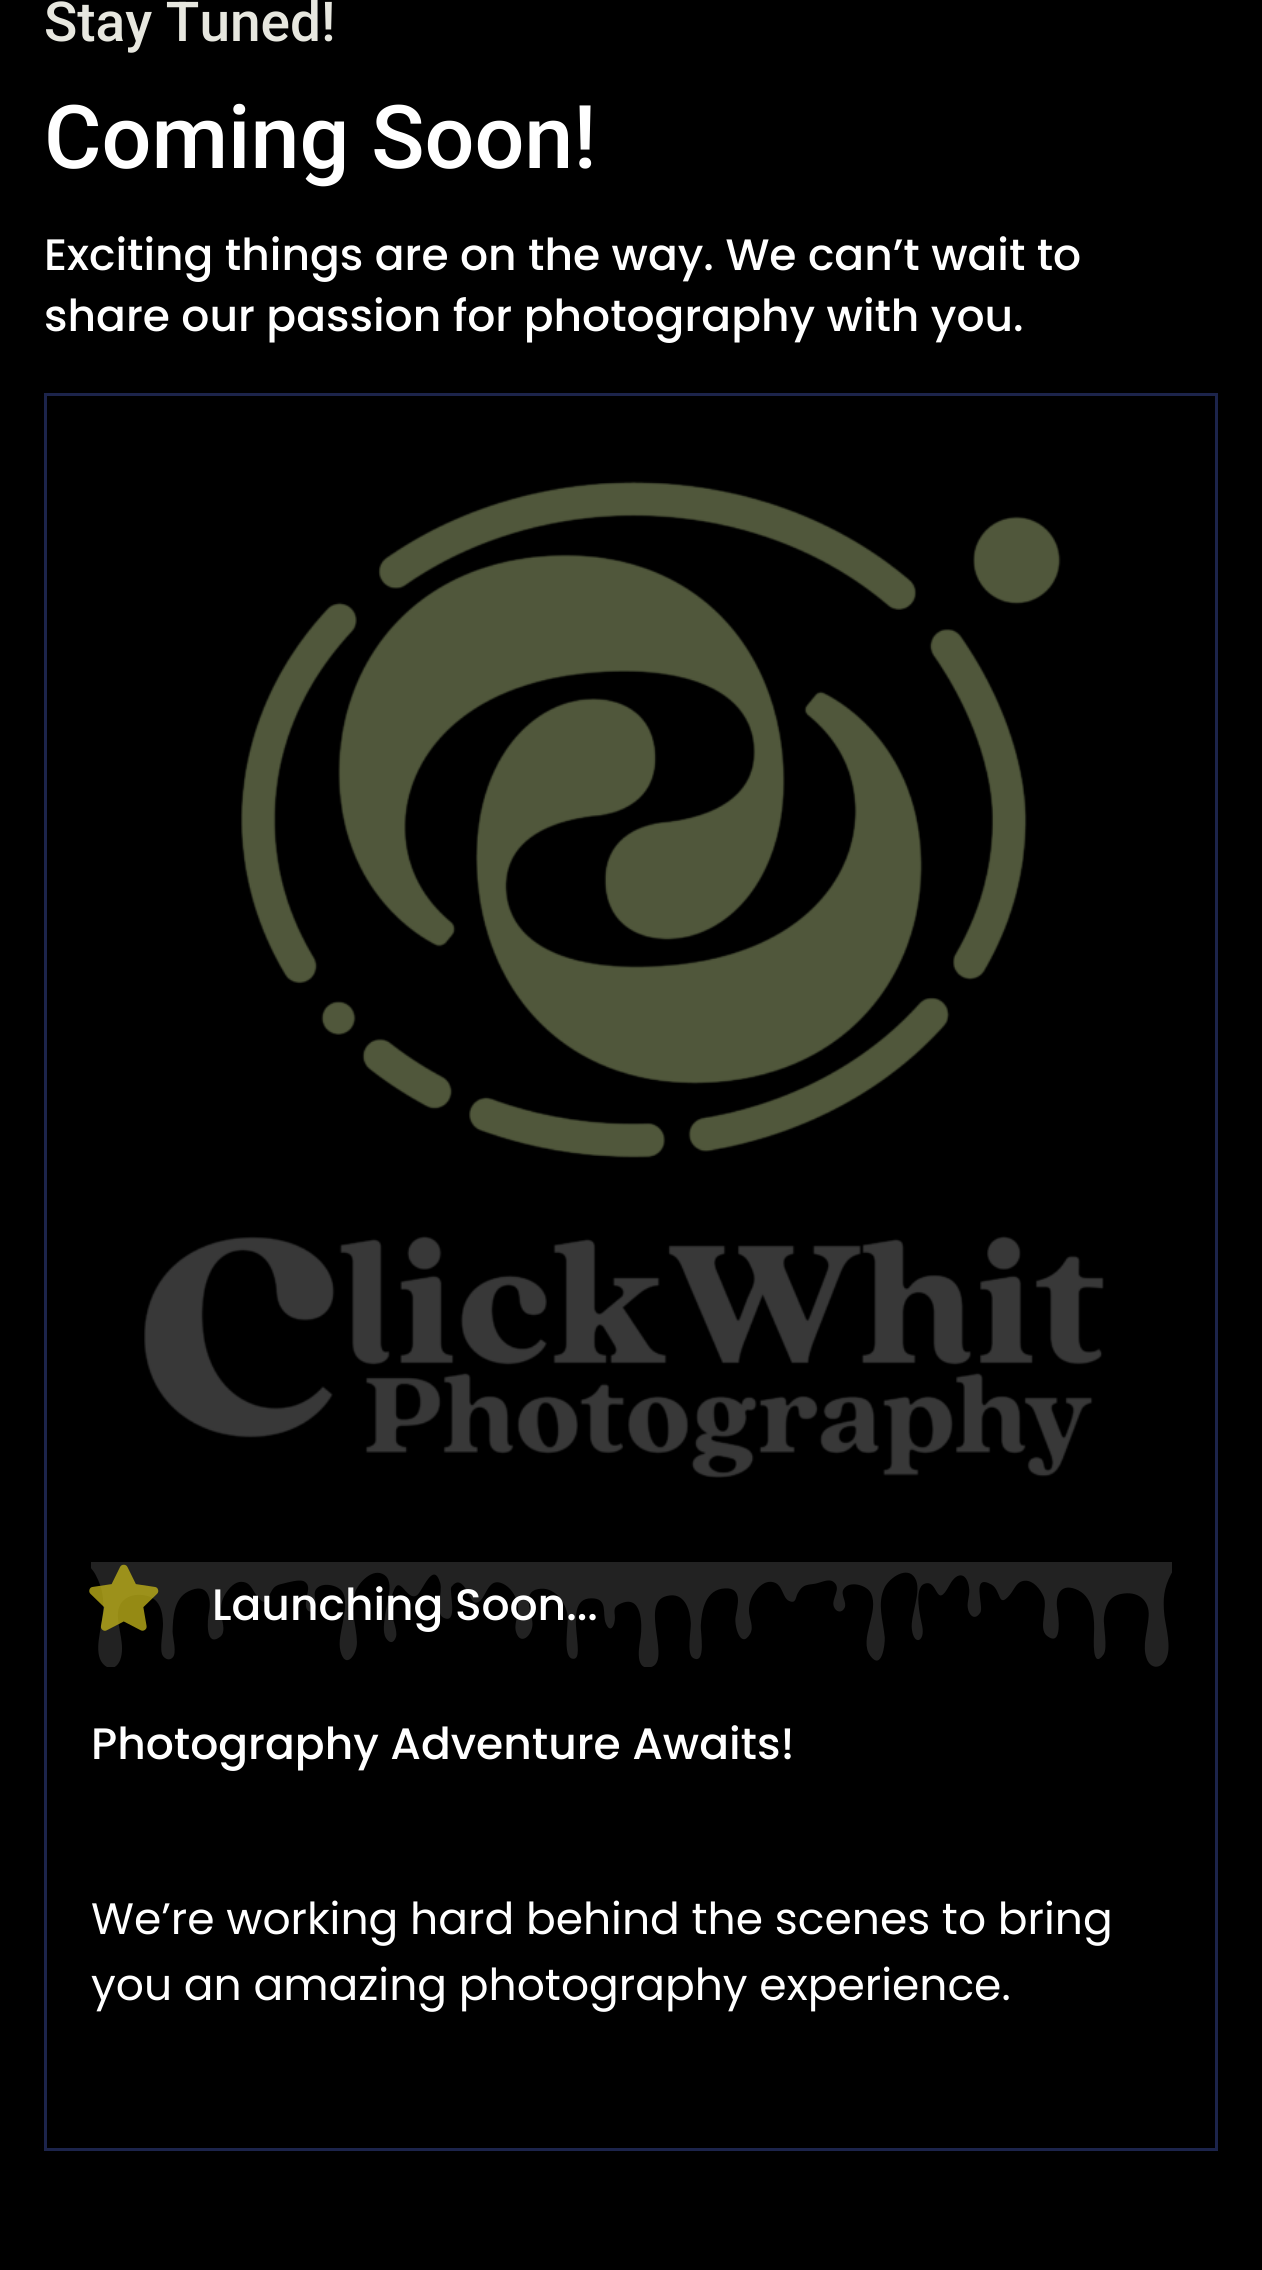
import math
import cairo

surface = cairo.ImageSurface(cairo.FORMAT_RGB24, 1262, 2270)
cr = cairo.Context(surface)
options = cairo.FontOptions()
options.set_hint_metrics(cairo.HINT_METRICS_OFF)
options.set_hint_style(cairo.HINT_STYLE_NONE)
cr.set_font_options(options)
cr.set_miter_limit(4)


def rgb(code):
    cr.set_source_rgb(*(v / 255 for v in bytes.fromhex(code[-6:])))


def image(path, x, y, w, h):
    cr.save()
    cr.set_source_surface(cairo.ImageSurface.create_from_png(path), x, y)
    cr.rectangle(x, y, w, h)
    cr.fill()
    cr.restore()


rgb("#000000")
cr.paint()
cr.rectangle(45.5, 394.5, 1171, 1755)
rgb("#1c244b")
cr.set_line_width(3)
cr.stroke()
image("img/1.png", 144, 481, 960, 997)
image("img/2.png", 91, 1562, 1081, 105)
image("img/3.png", 89, 1564, 70, 67)
cr.select_font_face("Roboto Medium")
cr.set_font_size(55)
rgb("#e7e7df")
cr.move_to(44, 41)
cr.show_text("Stay Tuned!")
cr.set_font_size(88)
rgb("#ffffff")
cr.move_to(44, 168)
cr.show_text("Coming Soon!")
cr.select_font_face("Poppins Medium")
cr.set_font_size(44)
for x, y, s in [
    (44, 270, "Exciting things are on the way. We can’t wait to"),
    (44, 331, "share our passion for photography with you."),
    (212, 1620, "Launching Soon..."),
    (91, 1759, "Photography Adventure Awaits!"),
]:
    cr.move_to(x, y)
    cr.show_text(s)
cr.select_font_face("Poppins")
cr.move_to(91, 1934)
cr.show_text("We’re working hard behind the scenes to bring")
cr.move_to(91, 2000)
cr.show_text("you an amazing photography experience.")
surface.write_to_png("page.png")
